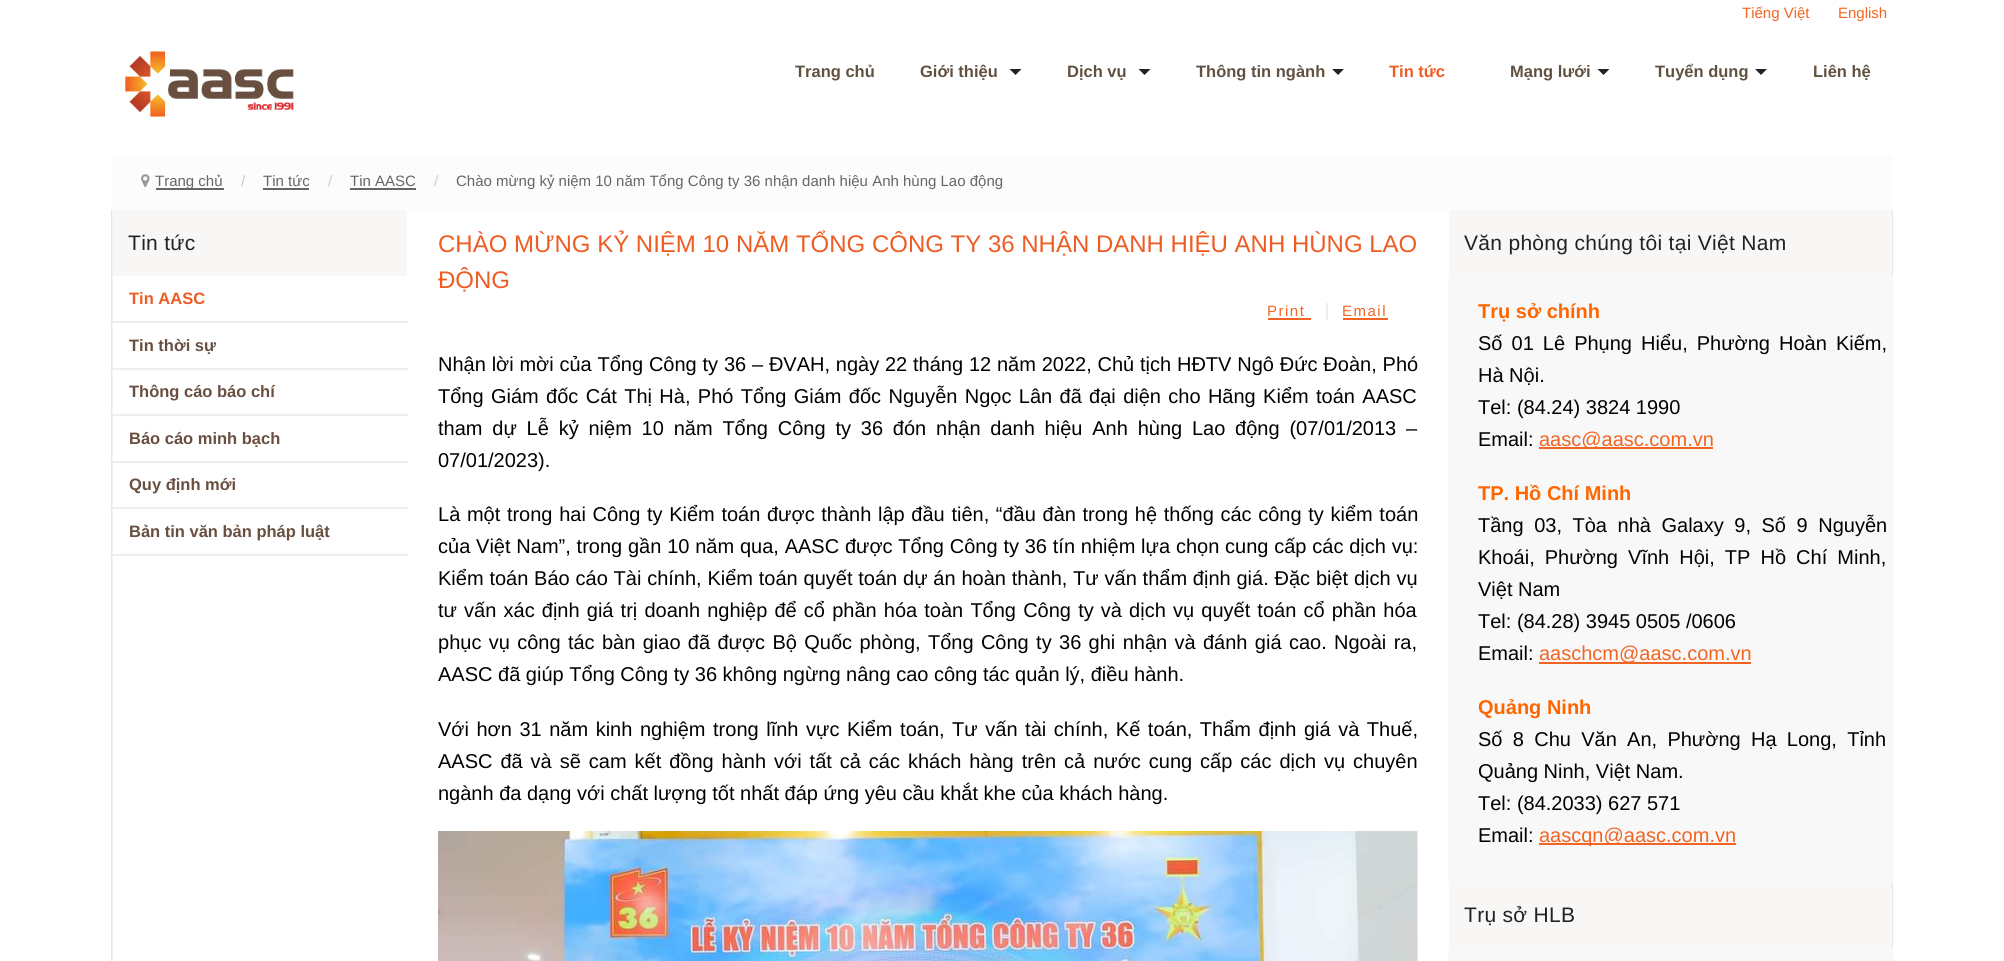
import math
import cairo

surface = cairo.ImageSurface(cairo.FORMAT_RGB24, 2004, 961)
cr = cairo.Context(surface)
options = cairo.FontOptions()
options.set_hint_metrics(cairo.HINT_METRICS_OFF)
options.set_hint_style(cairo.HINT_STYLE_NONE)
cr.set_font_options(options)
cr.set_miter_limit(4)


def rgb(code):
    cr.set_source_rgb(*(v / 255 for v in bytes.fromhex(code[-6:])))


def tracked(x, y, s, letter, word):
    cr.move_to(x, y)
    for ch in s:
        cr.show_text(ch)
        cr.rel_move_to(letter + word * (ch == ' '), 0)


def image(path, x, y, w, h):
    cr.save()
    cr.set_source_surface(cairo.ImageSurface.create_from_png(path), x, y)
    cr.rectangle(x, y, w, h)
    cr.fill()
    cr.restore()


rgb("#ffffff")
cr.paint()
image("img/1.png", 125, 51, 169, 66)
rgb("#222222")
cr.new_path()
cr.move_to(1009.5, 69)
cr.line_to(1021.5, 69)
cr.line_to(1015.5, 75)
cr.close_path()
cr.fill()
cr.new_path()
cr.move_to(1138.5, 69)
cr.line_to(1150.5, 69)
cr.line_to(1144.5, 75)
cr.close_path()
cr.fill()
cr.new_path()
cr.move_to(1332, 69)
cr.line_to(1344, 69)
cr.line_to(1338, 75)
cr.close_path()
cr.fill()
cr.new_path()
cr.move_to(1597.5, 69)
cr.line_to(1609.5, 69)
cr.line_to(1603.5, 75)
cr.close_path()
cr.fill()
cr.new_path()
cr.move_to(1755, 69)
cr.line_to(1767, 69)
cr.line_to(1761, 75)
cr.close_path()
cr.fill()
rgb("#fcfcfc")
cr.rectangle(111, 155, 1782, 55)
cr.fill()
image("img/2.png", 141, 174, 9, 13)
for x, y, w, h, color in [
    (156, 188, 68, 2, "#666666"),
    (263, 188, 46, 2, "#666666"),
    (350, 188, 66, 2, "#666666"),
]:
    rgb(color)
    cr.rectangle(x, y, w, h)
    cr.fill()
image("img/3.png", 111, 210, 2, 751)
for x, y, w, h, color in [
    (113, 210, 294, 66, "#f8f7f6"),
    (111, 321, 297, 2, "#eeeeee"),
    (111, 368, 297, 2, "#eeeeee"),
    (111, 414, 297, 2, "#eeeeee"),
    (111, 461, 297, 2, "#eeeeee"),
    (111, 507, 297, 2, "#eeeeee"),
    (111, 554, 297, 2, "#eeeeee"),
    (1326, 303, 2, 17, "#eeeeee"),
    (1268, 318, 43, 2, "#f26422"),
    (1343, 318, 45, 2, "#f26422"),
]:
    rgb(color)
    cr.rectangle(x, y, w, h)
    cr.fill()
image("img/4.png", 438, 831, 980, 130)
image("img/5.png", 1892, 210, 1, 738)
for x, y, w, h, color in [
    (1449, 210, 443, 66, "#f8f7f6"),
    (1448, 276, 445, 606, "#f8f8f8"),
    (1539, 447, 174, 2, "#f26422"),
    (1539, 662, 212, 2, "#f26422"),
    (1539, 843, 197, 2, "#f26422"),
    (1449, 882, 443, 66, "#f8f7f6"),
    (1448, 948, 445, 13, "#f8f8f8"),
]:
    rgb(color)
    cr.rectangle(x, y, w, h)
    cr.fill()
cr.select_font_face("Liberation Sans")
cr.set_font_size(15)
rgb("#f26422")
cr.move_to(1742, 18)
cr.show_text("Tiếng Việt")
cr.move_to(1838, 18)
cr.show_text("English")
cr.select_font_face("Liberation Sans", cairo.FONT_SLANT_NORMAL, cairo.FONT_WEIGHT_BOLD)
cr.set_font_size(16.5)
rgb("#615141")
for x, y, s in [
    (795, 77, "Trang chủ"),
    (920, 77, "Giới thiệu"),
    (1067, 77, "Dịch vụ"),
    (1196, 77, "Thông tin ngành"),
]:
    cr.move_to(x, y)
    cr.show_text(s)
rgb("#ee5c24")
cr.move_to(1389, 77)
cr.show_text("Tin tức")
rgb("#615141")
for x, y, s in [
    (1510, 77, "Mạng lưới"),
    (1655, 77, "Tuyển dụng"),
    (1813, 77, "Liên hệ"),
]:
    cr.move_to(x, y)
    cr.show_text(s)
cr.select_font_face("Liberation Sans")
cr.set_font_size(15)
rgb("#666666")
cr.move_to(155, 186)
cr.show_text("Trang chủ")
rgb("#cccccc")
cr.move_to(241, 186)
cr.show_text("/")
rgb("#666666")
cr.move_to(263, 186)
cr.show_text("Tin tức")
rgb("#cccccc")
cr.move_to(328, 186)
cr.show_text("/")
rgb("#666666")
cr.move_to(350, 186)
cr.show_text("Tin AASC")
rgb("#cccccc")
cr.move_to(434, 186)
cr.show_text("/")
rgb("#666666")
cr.move_to(456, 186)
cr.show_text("Chào mừng kỷ niệm 10 năm Tổng Công ty 36 nhận danh hiệu Anh hùng Lao động")
cr.set_font_size(21)
rgb("#222222")
tracked(128, 250, "Tin tức", 0.3, 0)
cr.select_font_face("Liberation Sans", cairo.FONT_SLANT_NORMAL, cairo.FONT_WEIGHT_BOLD)
cr.set_font_size(16.5)
rgb("#ee5c24")
cr.move_to(129, 304)
cr.show_text("Tin AASC")
rgb("#694f40")
for x, y, s in [
    (129, 351, "Tin thời sự"),
    (129, 397, "Thông cáo báo chí"),
    (129, 444, "Báo cáo minh bạch"),
    (129, 490, "Quy định mới"),
    (129, 537, "Bản tin văn bản pháp luật"),
]:
    cr.move_to(x, y)
    cr.show_text(s)
cr.select_font_face("Liberation Sans")
cr.set_font_size(24)
rgb("#ee5c24")
cr.move_to(438, 252)
cr.show_text("CHÀO MỪNG KỶ NIỆM 10 NĂM TỔNG CÔNG TY 36 NHẬN DANH HIỆU ANH HÙNG LAO")
cr.move_to(438, 288)
cr.show_text("ĐỘNG")
cr.set_font_size(15)
rgb("#f26422")
tracked(1267, 316, "Print", 1.5, 0)
tracked(1342, 316, "Email", 1.5, 0)
cr.set_font_size(20)
rgb("#000000")
tracked(438, 371, "Nhận lời mời của Tổng Công ty 36 – ĐVAH, ngày 22 tháng 12 năm 2022, Chủ tịch HĐTV Ngô Đức Đoàn, Phó", 0, 0.25)
tracked(438, 403, "Tổng Giám đốc Cát Thị Hà, Phó Tổng Giám đốc Nguyễn Ngọc Lân đã đại diện cho Hãng Kiểm toán AASC", 0, 1.8)
tracked(438, 435, "tham dự Lễ kỷ niệm 10 năm Tổng Công ty 36 đón nhận danh hiệu Anh hùng Lao động (07/01/2013 –", 0, 4.25)
cr.move_to(438, 467)
cr.show_text("07/01/2023).")
tracked(438, 521, "Là một trong hai Công ty Kiểm toán được thành lập đầu tiên, “đầu đàn trong hệ thống các công ty kiểm toán", 0, 1.1)
tracked(438, 553, "của Việt Nam”, trong gần 10 năm qua, AASC được Tổng Công ty 36 tín nhiệm lựa chọn cung cấp các dịch vụ:", 0, 0.25)
tracked(438, 585, "Kiểm toán Báo cáo Tài chính, Kiểm toán quyết toán dự án hoàn thành, Tư vấn thẩm định giá. Đặc biệt dịch vụ", 0, 0.25)
tracked(438, 617, "tư vấn xác định giá trị doanh nghiệp để cổ phần hóa toàn Tổng Công ty và dịch vụ quyết toán cổ phần hóa", 0, 1.6)
tracked(438, 649, "phục vụ công tác bàn giao đã được Bộ Quốc phòng, Tổng Công ty 36 ghi nhận và đánh giá cao. Ngoài ra,", 0, 1.8)
cr.move_to(438, 681)
cr.show_text("AASC đã giúp Tổng Công ty 36 không ngừng nâng cao công tác quản lý, điều hành.")
tracked(438, 736, "Với hơn 31 năm kinh nghiệm trong lĩnh vực Kiểm toán, Tư vấn tài chính, Kế toán, Thẩm định giá và Thuế,", 0, 2)
tracked(438, 768, "AASC đã và sẽ cam kết đồng hành với tất cả các khách hàng trên cả nước cung cấp các dịch vụ chuyên", 0, 2.4)
cr.move_to(438, 800)
cr.show_text("ngành đa dạng với chất lượng tốt nhất đáp ứng yêu cầu khắt khe của khách hàng.")
cr.set_font_size(21)
rgb("#222222")
tracked(1464, 250, "Văn phòng chúng tôi tại Việt Nam", 0.3, 0)
cr.select_font_face("Liberation Sans", cairo.FONT_SLANT_NORMAL, cairo.FONT_WEIGHT_BOLD)
cr.set_font_size(20)
rgb("#ff6600")
cr.move_to(1478, 318)
cr.show_text("Trụ sở chính")
cr.select_font_face("Liberation Sans")
rgb("#000000")
tracked(1478, 350, "Số 01 Lê Phụng Hiểu, Phường Hoàn Kiếm,", 0, 3.5)
for x, y, s in [
    (1478, 382, "Hà Nội."),
    (1478, 414, "Tel: (84.24) 3824 1990"),
    (1478, 446, "Email:"),
]:
    cr.move_to(x, y)
    cr.show_text(s)
rgb("#f26422")
cr.move_to(1539, 446)
cr.show_text("aasc@aasc.com.vn")
cr.select_font_face("Liberation Sans", cairo.FONT_SLANT_NORMAL, cairo.FONT_WEIGHT_BOLD)
rgb("#ff6600")
cr.move_to(1478, 500)
cr.show_text("TP. Hồ Chí Minh")
cr.select_font_face("Liberation Sans")
rgb("#000000")
tracked(1478, 532, "Tầng 03, Tòa nhà Galaxy 9, Số 9 Nguyễn", 0, 5)
tracked(1478, 564, "Khoái, Phường Vĩnh Hội, TP Hồ Chí Minh,", 0, 4.5)
for x, y, s in [
    (1478, 596, "Việt Nam"),
    (1478, 628, "Tel: (84.28) 3945 0505 /0606"),
    (1478, 660, "Email:"),
]:
    cr.move_to(x, y)
    cr.show_text(s)
rgb("#f26422")
cr.move_to(1539, 660)
cr.show_text("aaschcm@aasc.com.vn")
cr.select_font_face("Liberation Sans", cairo.FONT_SLANT_NORMAL, cairo.FONT_WEIGHT_BOLD)
rgb("#ff6600")
cr.move_to(1478, 714)
cr.show_text("Quảng Ninh")
cr.select_font_face("Liberation Sans")
rgb("#000000")
tracked(1478, 746, "Số 8 Chu Văn An, Phường Hạ Long, Tỉnh", 0, 4.75)
for x, y, s in [
    (1478, 778, "Quảng Ninh, Việt Nam."),
    (1478, 810, "Tel: (84.2033) 627 571"),
    (1478, 842, "Email:"),
]:
    cr.move_to(x, y)
    cr.show_text(s)
rgb("#f26422")
cr.move_to(1539, 842)
cr.show_text("aascqn@aasc.com.vn")
cr.set_font_size(21)
rgb("#222222")
tracked(1464, 922, "Trụ sở HLB", 0.3, 0)
surface.write_to_png("page.png")
